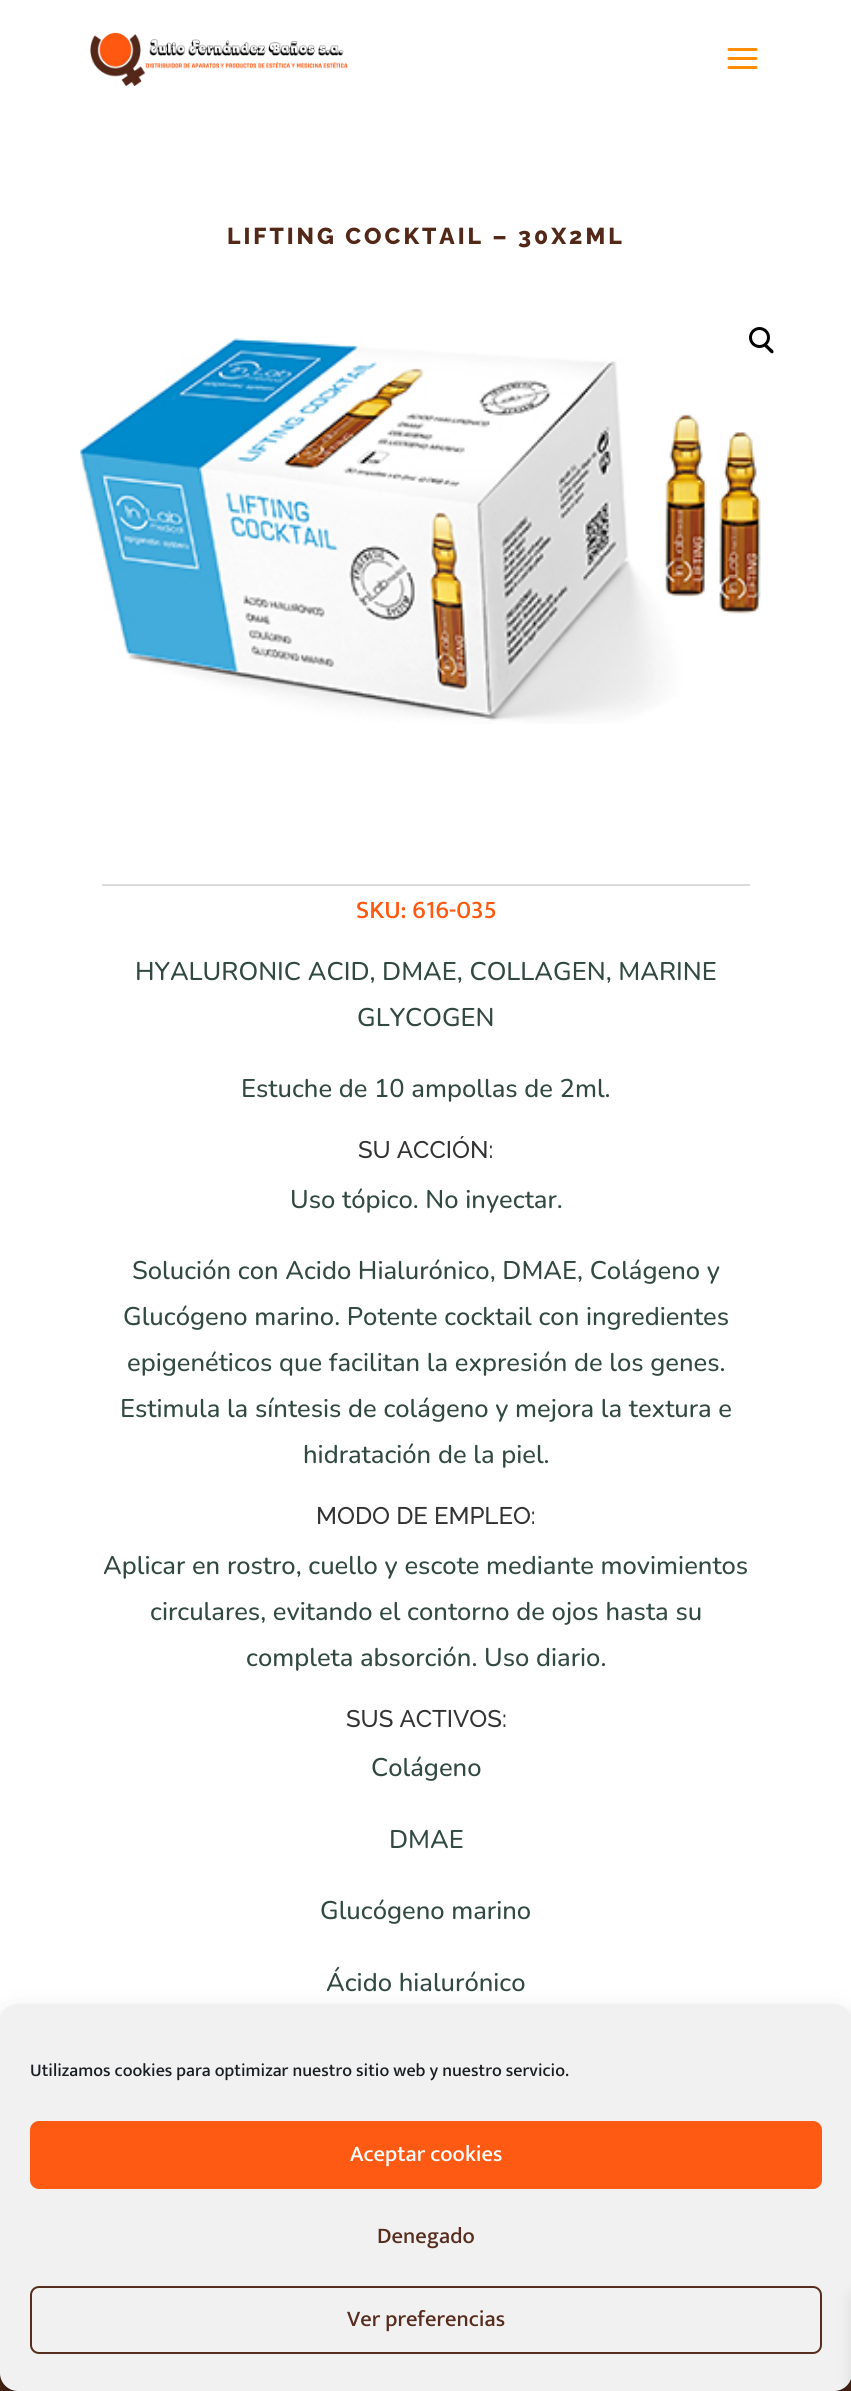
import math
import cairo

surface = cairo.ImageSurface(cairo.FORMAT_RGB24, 851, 2391)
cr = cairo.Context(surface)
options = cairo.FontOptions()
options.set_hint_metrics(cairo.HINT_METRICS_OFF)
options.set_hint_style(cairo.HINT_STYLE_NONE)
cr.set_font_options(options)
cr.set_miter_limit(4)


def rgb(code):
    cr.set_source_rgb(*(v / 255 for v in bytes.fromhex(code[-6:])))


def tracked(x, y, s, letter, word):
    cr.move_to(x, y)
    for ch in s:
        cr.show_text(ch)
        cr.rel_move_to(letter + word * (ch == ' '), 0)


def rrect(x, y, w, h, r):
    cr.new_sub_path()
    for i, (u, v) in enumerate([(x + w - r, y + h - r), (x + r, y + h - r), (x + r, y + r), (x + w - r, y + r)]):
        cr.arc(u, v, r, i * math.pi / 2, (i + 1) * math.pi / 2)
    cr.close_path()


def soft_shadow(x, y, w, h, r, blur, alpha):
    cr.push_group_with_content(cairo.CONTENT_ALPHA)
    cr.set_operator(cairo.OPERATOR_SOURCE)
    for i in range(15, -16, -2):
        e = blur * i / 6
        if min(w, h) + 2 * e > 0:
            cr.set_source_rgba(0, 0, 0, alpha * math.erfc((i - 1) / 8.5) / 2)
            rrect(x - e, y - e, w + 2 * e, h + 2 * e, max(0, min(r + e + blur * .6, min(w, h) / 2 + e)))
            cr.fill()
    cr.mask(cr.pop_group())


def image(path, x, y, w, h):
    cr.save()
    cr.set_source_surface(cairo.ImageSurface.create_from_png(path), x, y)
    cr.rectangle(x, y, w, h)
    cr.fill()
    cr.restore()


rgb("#ffffff")
cr.paint()
image("img/1.png", 90, 32, 258, 54)
image("img/2.png", 727, 48, 31, 21)
image("img/3.png", 80, 338, 681, 386)
cr.arc(759.5, 337.5, 9, 0, 2 * math.pi)
rgb("#000000")
cr.set_line_width(3)
cr.stroke()
cr.new_path()
cr.move_to(764.5, 344.5)
cr.curve_to(766.5, 343, 769, 346.5, 770, 347.5)
cr.curve_to(771, 348.5, 775, 351, 773, 353)
cr.curve_to(771.5, 354.5, 768.5, 350.5, 768, 350)
cr.curve_to(767, 349, 763, 346, 764.5, 344.5)
cr.close_path()
cr.fill()
rgb("#dadada")
cr.rectangle(102, 884, 648, 2)
cr.fill()
rgb("#522818")
cr.rectangle(0, 2373, 851, 18)
cr.fill()
rgb("#000000")
soft_shadow(0, 2013, 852, 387, 18, 4.5, 0.23)
soft_shadow(0, 2019, 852, 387, 18, 15, 0.19)
rgb("#f1f1f1")
rrect(0, 2004, 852, 387, 18)
cr.fill()
rgb("#fe5a14")
rrect(31, 2122, 790, 66, 8)
cr.fill_preserve()
cr.set_line_width(2)
cr.stroke()
rrect(31, 2287, 790, 66, 8)
rgb("#572d1e")
cr.stroke()
rgb("#000000")
soft_shadow(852, 2297, 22, 87, 0, 7.5, 0.1)
cr.select_font_face("Raleway ExtraBold")
cr.set_font_size(23)
rgb("#522818")
tracked(227, 244, "LIFTING COCKTAIL – 30X2ML", 3, 0)
cr.select_font_face("Mukta Medium")
cr.set_font_size(25.5)
rgb("#ff5811")
cr.move_to(356, 918)
cr.show_text("SKU: 616-035")
cr.select_font_face("Nunito Medium")
cr.set_font_size(25.55)
rgb("#314942")
for x, y, s in [
    (135, 980, "HYALURONIC ACID, DMAE, COLLAGEN, MARINE"),
    (357, 1026, "GLYCOGEN"),
    (241, 1097, "Estuche de 10 ampollas de 2ml."),
]:
    cr.move_to(x, y)
    cr.show_text(s)
cr.select_font_face("Raleway Medium")
cr.set_font_size(24)
rgb("#333333")
cr.move_to(358, 1158)
cr.show_text("SU ACCIÓN:")
cr.select_font_face("Nunito Medium")
cr.set_font_size(25.55)
rgb("#314942")
for x, y, s in [
    (290, 1208, "Uso tópico. No inyectar."),
    (132, 1279, "Solución con Acido Hialurónico, DMAE, Colágeno y"),
    (123, 1325, "Glucógeno marino. Potente cocktail con ingredientes"),
    (127, 1371, "epigenéticos que facilitan la expresión de los genes."),
    (120, 1417, "Estimula la síntesis de colágeno y mejora la textura e"),
    (303, 1463, "hidratación de la piel."),
]:
    cr.move_to(x, y)
    cr.show_text(s)
cr.select_font_face("Raleway Medium")
cr.set_font_size(24)
rgb("#333333")
cr.move_to(316, 1524)
cr.show_text("MODO DE EMPLEO:")
cr.select_font_face("Nunito Medium")
cr.set_font_size(25.55)
rgb("#314942")
for x, y, s in [
    (103, 1574, "Aplicar en rostro, cuello y escote mediante movimientos"),
    (150, 1620, "circulares, evitando el contorno de ojos hasta su"),
    (246, 1666, "completa absorción. Uso diario."),
]:
    cr.move_to(x, y)
    cr.show_text(s)
cr.select_font_face("Raleway Medium")
cr.set_font_size(24)
rgb("#333333")
cr.move_to(346, 1727)
cr.show_text("SUS ACTIVOS:")
cr.select_font_face("Nunito Medium")
cr.set_font_size(25.55)
rgb("#314942")
for x, y, s in [
    (371, 1776, "Colágeno"),
    (389, 1848, "DMAE"),
    (320, 1919, "Glucógeno marino"),
    (326, 1991, "Ácido hialurónico"),
]:
    cr.move_to(x, y)
    cr.show_text(s)
cr.select_font_face("Mukta Medium")
cr.set_font_size(18)
rgb("#191e23")
cr.move_to(30, 2076)
cr.show_text("Utilizamos cookies para optimizar nuestro sitio web y nuestro servicio.")
cr.set_font_size(22.5)
rgb("#ffffff")
cr.move_to(350, 2161)
cr.show_text("Aceptar cookies")
rgb("#572d1e")
cr.move_to(377, 2243)
cr.show_text("Denegado")
cr.move_to(347, 2326)
cr.show_text("Ver preferencias")
surface.write_to_png("page.png")
